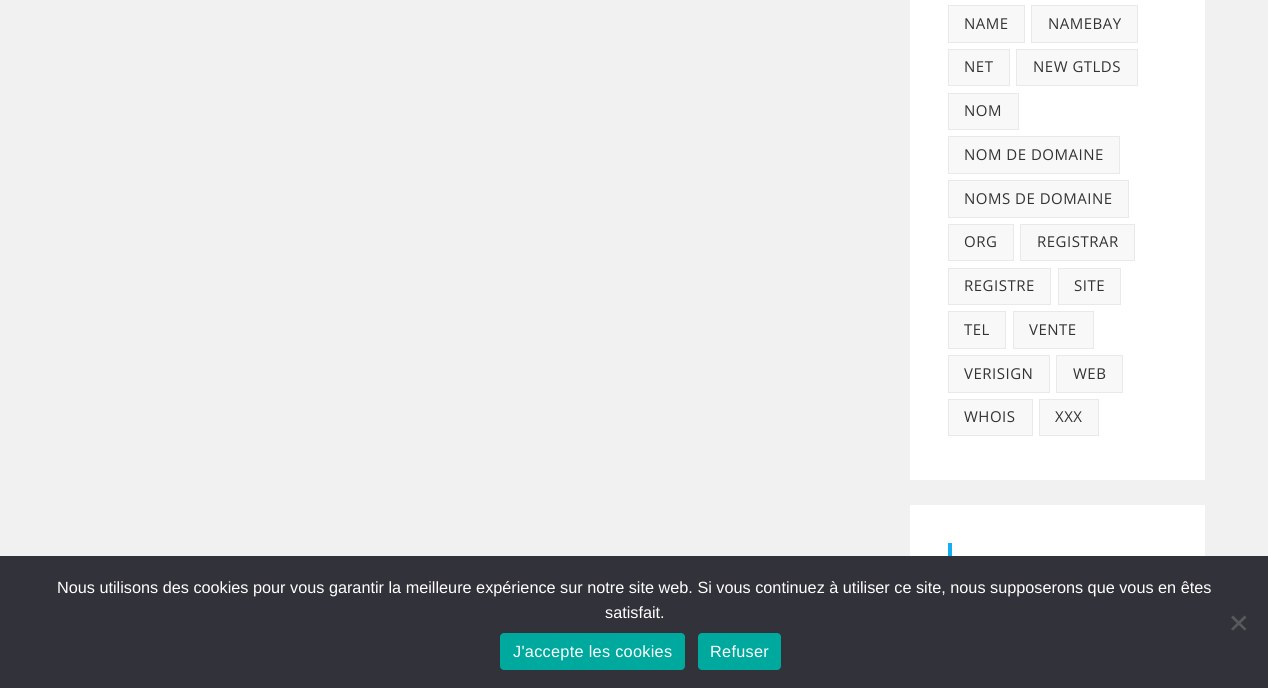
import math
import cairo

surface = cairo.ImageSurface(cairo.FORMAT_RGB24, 1268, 688)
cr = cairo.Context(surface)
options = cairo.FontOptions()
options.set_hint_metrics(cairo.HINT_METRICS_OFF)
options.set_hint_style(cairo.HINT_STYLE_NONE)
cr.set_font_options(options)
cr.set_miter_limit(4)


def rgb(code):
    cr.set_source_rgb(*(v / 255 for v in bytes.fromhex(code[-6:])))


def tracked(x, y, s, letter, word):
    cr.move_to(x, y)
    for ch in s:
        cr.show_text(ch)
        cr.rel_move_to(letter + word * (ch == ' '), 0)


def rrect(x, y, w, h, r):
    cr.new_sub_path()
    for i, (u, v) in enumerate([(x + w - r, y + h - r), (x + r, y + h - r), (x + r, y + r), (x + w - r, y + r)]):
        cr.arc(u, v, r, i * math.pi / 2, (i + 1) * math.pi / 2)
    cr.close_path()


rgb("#f1f1f1")
cr.paint()
rgb("#ffffff")
cr.rectangle(910, 0, 295, 480)
cr.fill()
rgb("#f8f8f8")
cr.rectangle(948.5, 5.5, 76, 37)
cr.fill_preserve()
rgb("#e9e9e9")
cr.set_line_width(1)
cr.stroke()
rgb("#f8f8f8")
cr.rectangle(1031.5, 5.5, 106, 37)
cr.fill_preserve()
rgb("#e9e9e9")
cr.stroke()
rgb("#f8f8f8")
cr.rectangle(948.5, 49.5, 61, 36)
cr.fill_preserve()
rgb("#e9e9e9")
cr.stroke()
rgb("#f8f8f8")
cr.rectangle(1016.5, 49.5, 121, 36)
cr.fill_preserve()
rgb("#e9e9e9")
cr.stroke()
rgb("#f8f8f8")
cr.rectangle(948.5, 93.5, 70, 36)
cr.fill_preserve()
rgb("#e9e9e9")
cr.stroke()
rgb("#f8f8f8")
cr.rectangle(948.5, 136.5, 171, 37)
cr.fill_preserve()
rgb("#e9e9e9")
cr.stroke()
rgb("#f8f8f8")
cr.rectangle(948.5, 180.5, 180, 37)
cr.fill_preserve()
rgb("#e9e9e9")
cr.stroke()
rgb("#f8f8f8")
cr.rectangle(948.5, 224.5, 65, 36)
cr.fill_preserve()
rgb("#e9e9e9")
cr.stroke()
rgb("#f8f8f8")
cr.rectangle(1020.5, 224.5, 114, 36)
cr.fill_preserve()
rgb("#e9e9e9")
cr.stroke()
rgb("#f8f8f8")
cr.rectangle(948.5, 268.5, 102, 36)
cr.fill_preserve()
rgb("#e9e9e9")
cr.stroke()
rgb("#f8f8f8")
cr.rectangle(1058.5, 268.5, 62, 36)
cr.fill_preserve()
rgb("#e9e9e9")
cr.stroke()
rgb("#f8f8f8")
cr.rectangle(948.5, 311.5, 57, 37)
cr.fill_preserve()
rgb("#e9e9e9")
cr.stroke()
rgb("#f8f8f8")
cr.rectangle(1013.5, 311.5, 80, 37)
cr.fill_preserve()
rgb("#e9e9e9")
cr.stroke()
rgb("#f8f8f8")
cr.rectangle(948.5, 355.5, 101, 37)
cr.fill_preserve()
rgb("#e9e9e9")
cr.stroke()
rgb("#f8f8f8")
cr.rectangle(1056.5, 355.5, 66, 37)
cr.fill_preserve()
rgb("#e9e9e9")
cr.stroke()
rgb("#f8f8f8")
cr.rectangle(948.5, 399.5, 84, 36)
cr.fill_preserve()
rgb("#e9e9e9")
cr.stroke()
rgb("#f8f8f8")
cr.rectangle(1039.5, 399.5, 59, 36)
cr.fill_preserve()
rgb("#e9e9e9")
cr.stroke()
for x, y, w, h, color in [
    (910, 505, 295, 51, "#ffffff"),
    (948, 543, 4, 20, "#13aff0"),
    (0, 556, 1268, 132, "#32323a"),
]:
    rgb(color)
    cr.rectangle(x, y, w, h)
    cr.fill()
rgb("#59595d")
cr.new_path()
cr.move_to(1244.5, 615.5)
cr.line_to(1246.5, 617.5)
cr.line_to(1233, 630.5)
cr.line_to(1231, 629)
cr.close_path()
cr.fill()
cr.new_path()
cr.move_to(1231, 617.5)
cr.line_to(1233, 615.5)
cr.line_to(1246.5, 629)
cr.line_to(1244.5, 630.5)
cr.close_path()
cr.fill()
rgb("#00a99d")
rrect(500, 633, 185, 37, 4)
cr.fill()
rrect(698, 633, 83, 37, 4)
cr.fill()
cr.select_font_face("Open Sans")
cr.set_font_size(15)
rgb("#333333")
for x, y, s in [
    (964, 29, "NAME"),
    (1048, 29, "NAMEBAY"),
    (964, 72, "NET"),
    (1033, 72, "NEW GTLDS"),
    (964, 116, "NOM"),
    (964, 160, "NOM DE DOMAINE"),
    (964, 204, "NOMS DE DOMAINE"),
    (964, 247, "ORG"),
    (1037, 247, "REGISTRAR"),
    (964, 291, "REGISTRE"),
    (1074, 291, "SITE"),
    (964, 335, "TEL"),
    (1029, 335, "VENTE"),
    (964, 379, "VERISIGN"),
    (1073, 379, "WEB"),
    (964, 422, "WHOIS"),
    (1055, 422, "XXX"),
]:
    tracked(x, y, s, 0.5, 0)
cr.select_font_face("Liberation Sans")
cr.set_font_size(16.25)
rgb("#ffffff")
cr.move_to(57, 593)
cr.show_text("Nous utilisons des cookies pour vous garantir la meilleure expérience sur notre site web. Si vous continuez à utiliser ce site, nous supposerons que vous en êtes")
cr.move_to(605, 618)
cr.show_text("satisfait.")
tracked(513, 657, "J'accepte les cookies", 0.3, 0)
tracked(710, 657, "Refuser", 0.3, 0)
surface.write_to_png("page.png")
